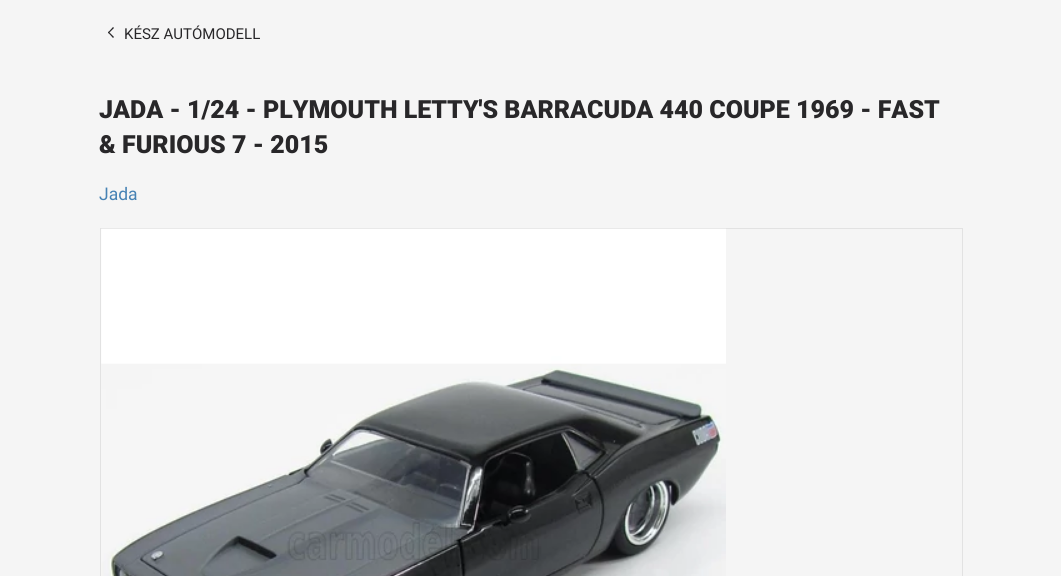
import math
import cairo

surface = cairo.ImageSurface(cairo.FORMAT_RGB24, 1061, 576)
cr = cairo.Context(surface)
options = cairo.FontOptions()
options.set_hint_metrics(cairo.HINT_METRICS_OFF)
options.set_hint_style(cairo.HINT_STYLE_NONE)
cr.set_font_options(options)
cr.set_miter_limit(4)


def rgb(code):
    cr.set_source_rgb(*(v / 255 for v in bytes.fromhex(code[-6:])))


def image(path, x, y, w, h):
    cr.save()
    cr.set_source_surface(cairo.ImageSurface.create_from_png(path), x, y)
    cr.rectangle(x, y, w, h)
    cr.fill()
    cr.restore()


rgb("#f5f5f5")
cr.paint()
rgb("#282729")
cr.new_path()
cr.move_to(114, 37)
cr.line_to(113, 38)
cr.line_to(108, 32.5)
cr.line_to(108.5, 31.5)
cr.close_path()
cr.fill()
cr.new_path()
cr.move_to(114, 28)
cr.line_to(108.5, 33.5)
cr.line_to(108, 32.5)
cr.line_to(113, 27)
cr.close_path()
cr.fill()
cr.rectangle(100.5, 228.5, 862, 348)
rgb("#e2e2e2")
cr.set_line_width(1)
cr.stroke()
image("img/1.png", 101, 228, 625, 348)
cr.select_font_face("Roboto")
cr.set_font_size(15)
rgb("#282729")
cr.move_to(124, 39)
cr.show_text("KÉSZ AUTÓMODELL")
cr.select_font_face("Roboto Black")
cr.set_font_size(25)
cr.move_to(99, 118)
cr.show_text("JADA - 1/24 - PLYMOUTH LETTY'S BARRACUDA 440 COUPE 1969 - FAST")
cr.move_to(99, 153)
cr.show_text("& FURIOUS 7 - 2015")
cr.select_font_face("Roboto")
cr.set_font_size(17.5)
rgb("#4682b4")
cr.move_to(99, 200)
cr.show_text("Jada")
surface.write_to_png("page.png")
